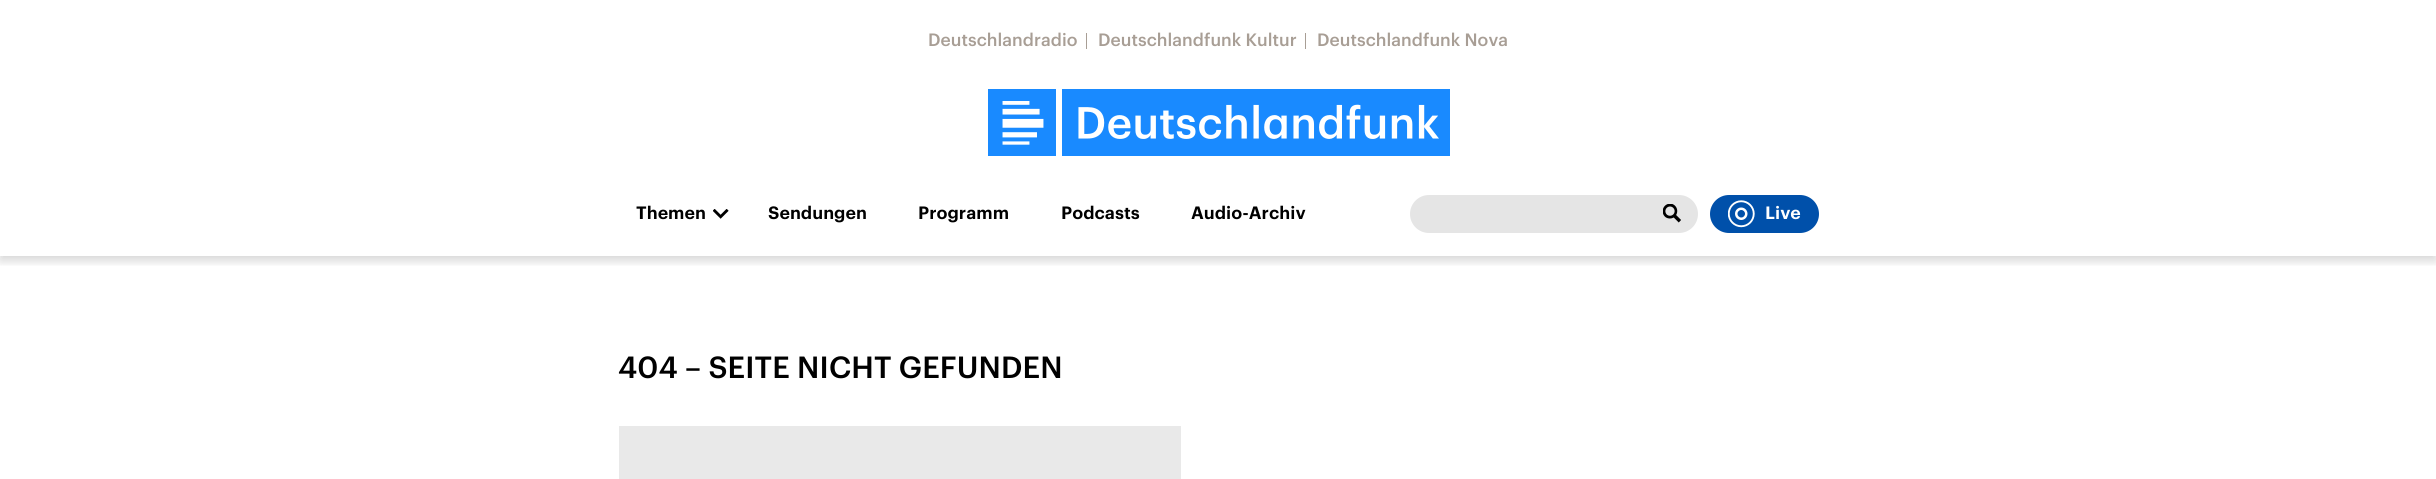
import math
import cairo

surface = cairo.ImageSurface(cairo.FORMAT_RGB24, 2436, 479)
cr = cairo.Context(surface)
options = cairo.FontOptions()
options.set_hint_metrics(cairo.HINT_METRICS_OFF)
options.set_hint_style(cairo.HINT_STYLE_NONE)
cr.set_font_options(options)
cr.set_miter_limit(4)


def rgb(code):
    cr.set_source_rgb(*(v / 255 for v in bytes.fromhex(code[-6:])))


def rrect(x, y, w, h, r):
    cr.new_sub_path()
    for i, (u, v) in enumerate([(x + w - r, y + h - r), (x + r, y + h - r), (x + r, y + r), (x + w - r, y + r)]):
        cr.arc(u, v, r, i * math.pi / 2, (i + 1) * math.pi / 2)
    cr.close_path()


def soft_shadow(x, y, w, h, r, blur, alpha):
    cr.push_group_with_content(cairo.CONTENT_ALPHA)
    cr.set_operator(cairo.OPERATOR_SOURCE)
    for i in range(15, -16, -2):
        e = blur * i / 6
        if min(w, h) + 2 * e > 0:
            cr.set_source_rgba(0, 0, 0, alpha * math.erfc((i - 1) / 8.5) / 2)
            rrect(x - e, y - e, w + 2 * e, h + 2 * e, max(0, min(r + e + blur * .6, min(w, h) / 2 + e)))
            cr.fill()
    cr.mask(cr.pop_group())


def image(path, x, y, w, h):
    cr.save()
    cr.set_source_surface(cairo.ImageSurface.create_from_png(path), x, y)
    cr.rectangle(x, y, w, h)
    cr.fill()
    cr.restore()


rgb("#ffffff")
cr.paint()
cr.save()
cr.rectangle(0, 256, 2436, 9)
cr.clip()
rgb("#000000")
soft_shadow(0, 4, 2436, 256, 0, 6, 0.09)
cr.restore()
cr.save()
cr.rectangle(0, 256, 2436, 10)
cr.clip()
rgb("#000000")
soft_shadow(0, 5, 2436, 256, 0, 6, 0.09)
cr.restore()
rgb("#a89e95")
cr.rectangle(1086, 33, 1, 16)
cr.fill()
cr.rectangle(1305, 33, 1, 16)
cr.fill()
image("img/1.png", 988, 89, 462, 67)
image("img/2.png", 713, 209, 16, 10)
rgb("#e5e5e5")
rrect(1410, 195, 288, 38, 19)
cr.fill()
image("img/3.png", 1663, 204, 18, 19)
rgb("#0050aa")
rrect(1710, 195, 109, 38, 19)
cr.fill()
image("img/4.png", 1728, 200, 27, 28)
rgb("#e9e9e9")
cr.rectangle(619, 426, 562, 53)
cr.fill()
cr.select_font_face("Graphik Medium")
cr.set_font_size(17.5)
rgb("#a89e95")
for x, y, s in [
    (928, 46, "Deutschlandradio"),
    (1098, 46, "Deutschlandfunk Kultur"),
    (1317, 46, "Deutschlandfunk Nova"),
]:
    cr.move_to(x, y)
    cr.show_text(s)
cr.select_font_face("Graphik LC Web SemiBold")
rgb("#000000")
for x, y, s in [
    (636, 219, "Themen"),
    (768, 219, "Sendungen"),
    (918, 219, "Programm"),
    (1061, 219, "Podcasts"),
    (1191, 219, "Audio-Archiv"),
]:
    cr.move_to(x, y)
    cr.show_text(s)
rgb("#ffffff")
cr.move_to(1765, 219)
cr.show_text("Live")
cr.select_font_face("Graphik Medium")
cr.set_font_size(30)
rgb("#000000")
cr.move_to(618, 378)
cr.show_text("404 – SEITE NICHT GEFUNDEN")
surface.write_to_png("page.png")
